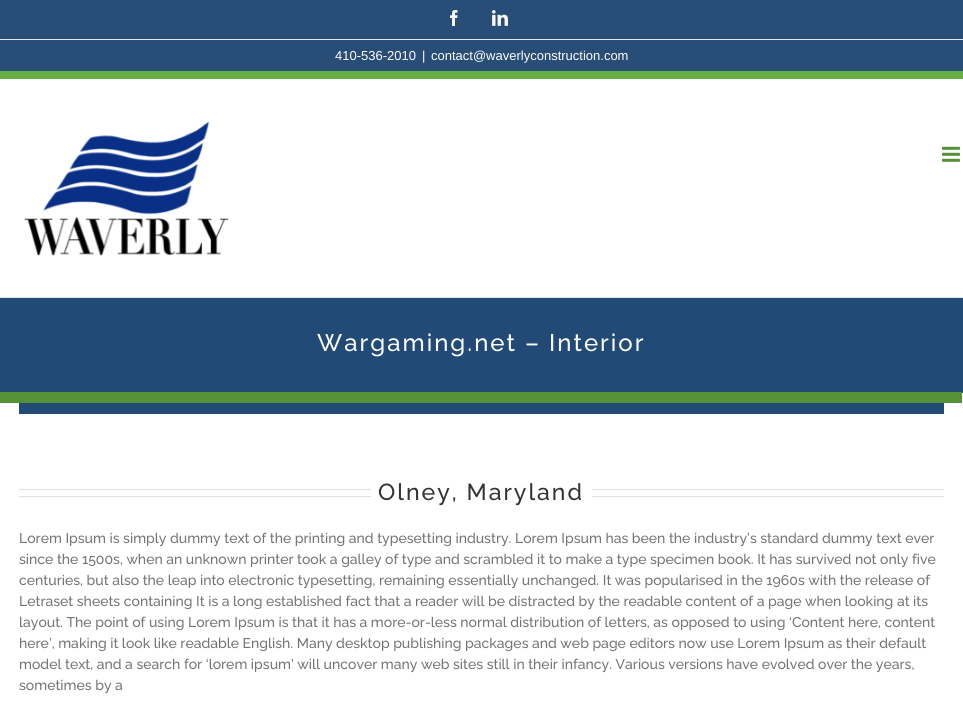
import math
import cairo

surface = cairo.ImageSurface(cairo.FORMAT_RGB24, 963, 714)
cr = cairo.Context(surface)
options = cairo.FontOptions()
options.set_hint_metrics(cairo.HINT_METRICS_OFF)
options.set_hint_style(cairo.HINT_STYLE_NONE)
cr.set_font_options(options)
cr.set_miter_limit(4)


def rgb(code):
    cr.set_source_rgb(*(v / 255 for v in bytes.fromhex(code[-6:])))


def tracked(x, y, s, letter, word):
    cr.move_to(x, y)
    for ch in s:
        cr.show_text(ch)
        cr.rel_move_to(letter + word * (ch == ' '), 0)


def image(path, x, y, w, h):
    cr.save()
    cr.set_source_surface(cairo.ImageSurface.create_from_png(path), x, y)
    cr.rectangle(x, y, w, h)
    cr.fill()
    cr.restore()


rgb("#ffffff")
cr.paint()
for x, y, w, h, color in [
    (0, 0, 963, 71, "#284d77"),
    (0, 71, 963, 8, "#65af42"),
    (0, 39, 963, 1, "#e5e5e5"),
]:
    rgb(color)
    cr.rectangle(x, y, w, h)
    cr.fill()
image("img/1.png", 450, 10, 8, 16)
image("img/2.png", 492, 10, 16, 16)
cr.rectangle(0, 297, 963, 1)
cr.fill()
image("img/3.png", 24, 122, 204, 134)
image("img/4.png", 942, 146, 18, 16)
for x, y, w, h, color in [
    (0, 298, 963, 95, "#224a77"),
    (0, 392, 962, 11, "#559137"),
    (19, 403, 925, 11, "#224a77"),
    (19, 489, 352, 1, "#e0e0e0"),
    (19, 496, 352, 1, "#e0e0e0"),
    (592, 489, 352, 1, "#e0e0e0"),
    (592, 496, 352, 1, "#e0e0e0"),
]:
    rgb(color)
    cr.rectangle(x, y, w, h)
    cr.fill()
cr.select_font_face("Liberation Sans")
cr.set_font_size(13)
rgb("#ffffff")
for x, y, s in [
    (335, 60, "410-536-2010"),
    (422, 60, "|"),
    (431, 60, "contact@waverlyconstruction.com"),
]:
    cr.move_to(x, y)
    cr.show_text(s)
cr.select_font_face("Raleway Medium")
cr.set_font_size(24)
tracked(317, 351, "Wargaming.net – Interior", 2, 0)
cr.set_font_size(23.1)
rgb("#333333")
tracked(378, 500, "Olney, Maryland", 2, 0)
cr.set_font_size(14)
rgb("#747474")
for x, y, s in [
    (19, 543, "Lorem Ipsum is simply dummy text of the printing and typesetting industry. Lorem Ipsum has been the industry’s standard dummy text ever"),
    (19, 564, "since the 1500s, when an unknown printer took a galley of type and scrambled it to make a type specimen book. It has survived not only five"),
    (19, 585, "centuries, but also the leap into electronic typesetting, remaining essentially unchanged. It was popularised in the 1960s with the release of"),
    (19, 606, "Letraset sheets containing It is a long established fact that a reader will be distracted by the readable content of a page when looking at its"),
    (19, 627, "layout. The point of using Lorem Ipsum is that it has a more-or-less normal distribution of letters, as opposed to using ‘Content here, content"),
    (19, 648, "here’, making it look like readable English. Many desktop publishing packages and web page editors now use Lorem Ipsum as their default"),
    (19, 669, "model text, and a search for ‘lorem ipsum’ will uncover many web sites still in their infancy. Various versions have evolved over the years,"),
    (19, 690, "sometimes by a"),
]:
    cr.move_to(x, y)
    cr.show_text(s)
surface.write_to_png("page.png")
